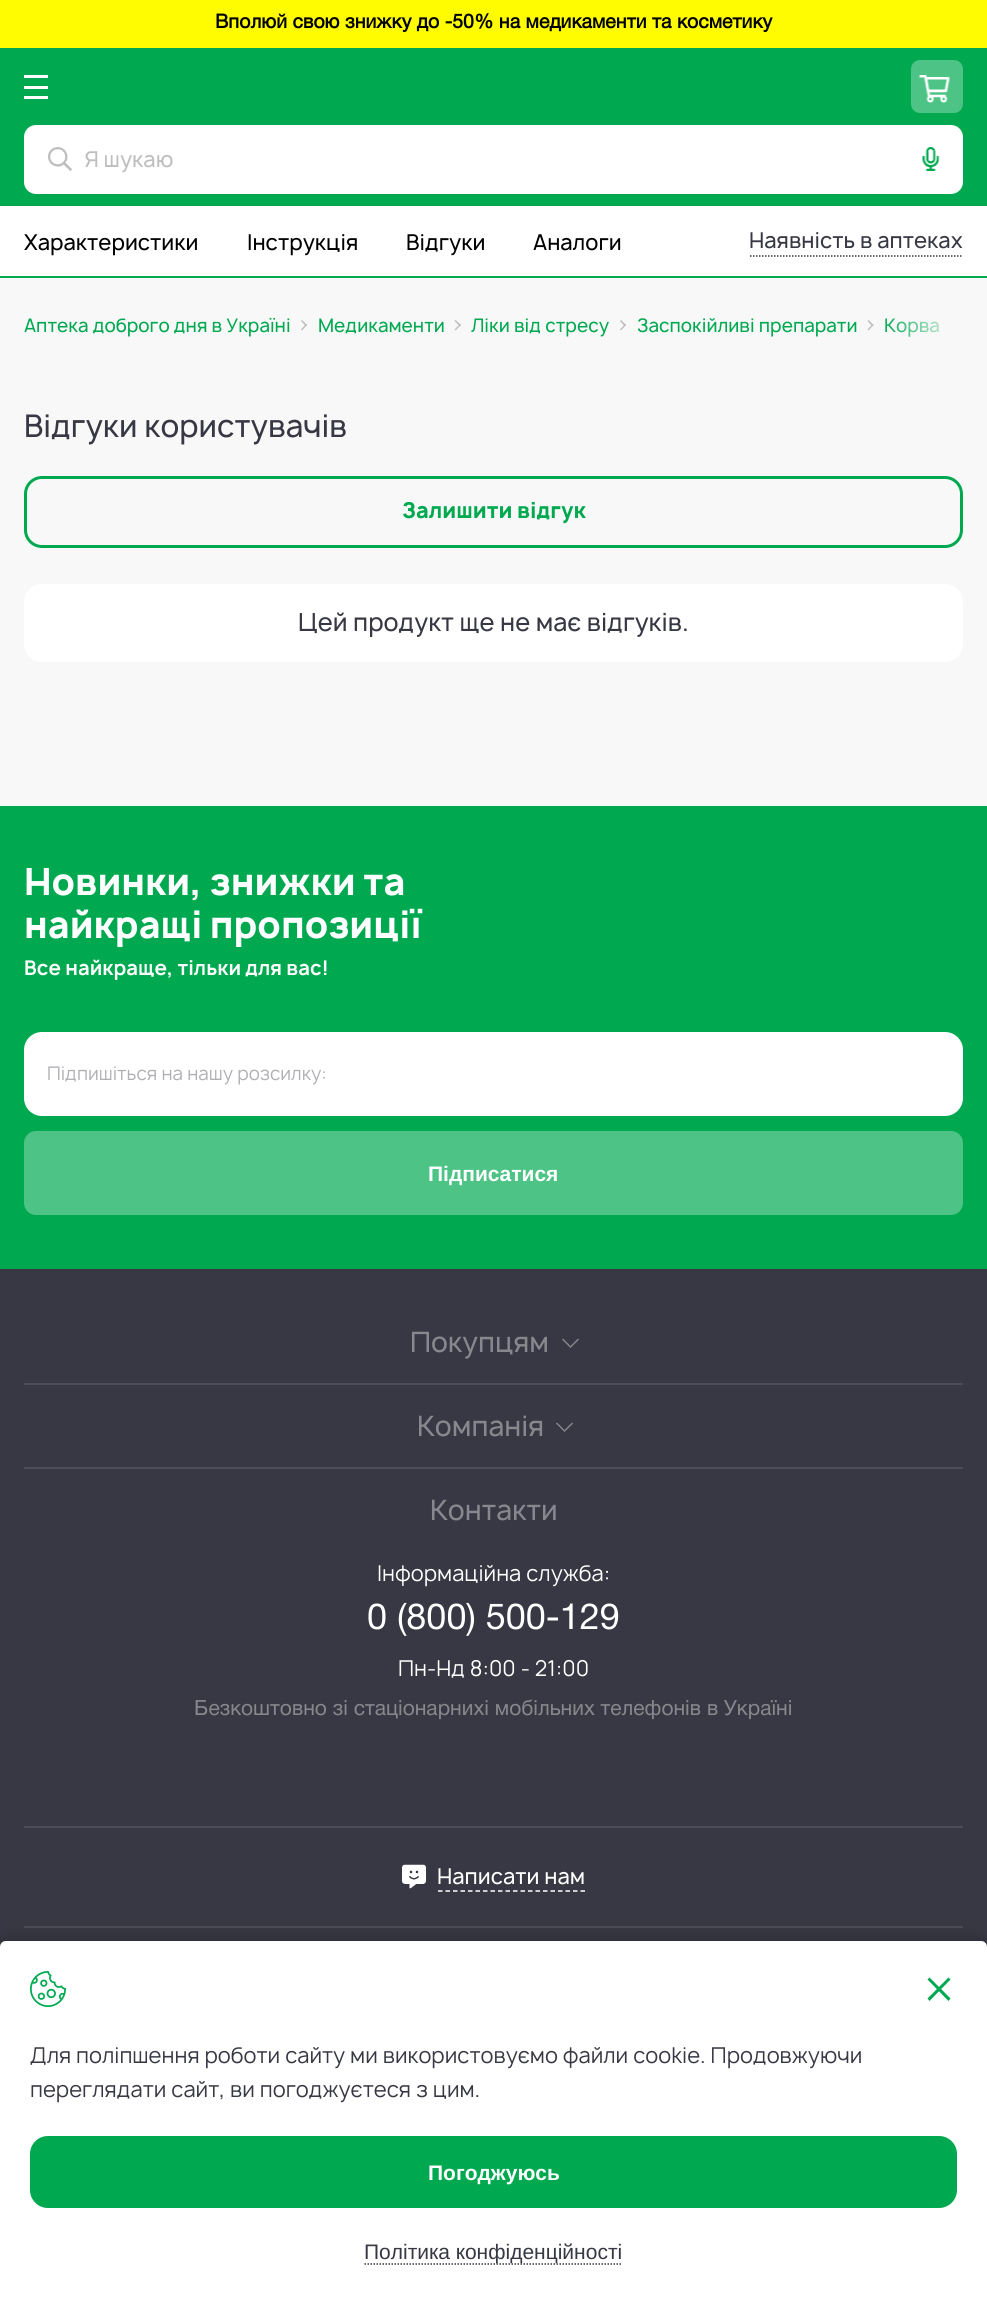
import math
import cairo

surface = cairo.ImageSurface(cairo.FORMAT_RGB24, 987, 2297)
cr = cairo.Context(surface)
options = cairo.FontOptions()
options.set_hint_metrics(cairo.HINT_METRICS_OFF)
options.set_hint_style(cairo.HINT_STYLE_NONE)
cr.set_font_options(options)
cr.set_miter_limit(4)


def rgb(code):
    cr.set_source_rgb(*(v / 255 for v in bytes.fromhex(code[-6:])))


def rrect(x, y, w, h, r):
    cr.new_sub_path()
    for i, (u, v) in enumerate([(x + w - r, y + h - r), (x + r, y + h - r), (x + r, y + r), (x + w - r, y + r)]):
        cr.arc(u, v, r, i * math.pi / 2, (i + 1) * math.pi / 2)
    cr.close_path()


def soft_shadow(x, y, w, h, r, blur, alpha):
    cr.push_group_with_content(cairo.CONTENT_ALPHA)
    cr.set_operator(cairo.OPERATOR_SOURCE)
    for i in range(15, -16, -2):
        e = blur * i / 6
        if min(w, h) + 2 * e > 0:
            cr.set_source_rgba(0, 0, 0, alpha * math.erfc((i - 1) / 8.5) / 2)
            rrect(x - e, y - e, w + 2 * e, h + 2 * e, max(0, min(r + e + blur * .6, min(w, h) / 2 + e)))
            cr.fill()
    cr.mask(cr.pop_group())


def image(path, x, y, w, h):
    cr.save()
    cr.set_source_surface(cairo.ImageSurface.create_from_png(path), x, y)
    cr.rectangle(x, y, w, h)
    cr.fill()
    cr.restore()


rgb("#f8f8f8")
cr.paint()
for x, y, w, h, color in [
    (0, 48, 987, 158, "#00a950"),
    (0, 0, 987, 48, "#fffb00"),
    (24, 86, 24, 3, "#ffffff"),
    (24, 75, 24, 3, "#ffffff"),
    (24, 96, 24, 3, "#ffffff"),
]:
    rgb(color)
    cr.rectangle(x, y, w, h)
    cr.fill()
rgb("#4dc385")
rrect(911, 60, 52, 53, 9)
cr.fill()
image("img/1.png", 919, 75, 31, 28)
rgb("#ffffff")
rrect(24, 125, 939, 69, 12)
cr.fill()
image("img/2.png", 48, 147, 24, 24)
image("img/3.png", 922, 147, 18, 24)
cr.rectangle(0, 206, 987, 70)
cr.fill()
rgb("#00a950")
cr.rectangle(0, 276, 987, 2)
cr.fill()
cr.new_path()
cr.move_to(750, 256)
cr.line_to(963, 256)
rgb("#373843")
cr.set_line_width(1.5)
cr.set_dash([1.5, 1.5])
cr.stroke()
rgb("#bdbdbd")
cr.new_path()
cr.move_to(302, 320)
cr.line_to(307, 325)
cr.line_to(306, 326.5)
cr.line_to(301, 321)
cr.close_path()
cr.fill()
cr.new_path()
cr.move_to(306, 324)
cr.line_to(307, 325)
cr.line_to(302, 330.5)
cr.line_to(301, 329.5)
cr.close_path()
cr.fill()
cr.new_path()
cr.move_to(455.5, 320)
cr.line_to(461, 325)
cr.line_to(460, 326.5)
cr.line_to(454.5, 321)
cr.close_path()
cr.fill()
cr.new_path()
cr.move_to(460, 324)
cr.line_to(461, 325)
cr.line_to(455.5, 330.5)
cr.line_to(454.5, 329.5)
cr.close_path()
cr.fill()
cr.new_path()
cr.move_to(621, 320)
cr.line_to(626, 325)
cr.line_to(625, 326.5)
cr.line_to(620, 321)
cr.close_path()
cr.fill()
cr.new_path()
cr.move_to(625, 324)
cr.line_to(626, 325)
cr.line_to(621, 330.5)
cr.line_to(620, 329.5)
cr.close_path()
cr.fill()
cr.new_path()
cr.move_to(868.5, 320)
cr.line_to(873.5, 325)
cr.line_to(872.5, 326.5)
cr.line_to(867.5, 321)
cr.close_path()
cr.fill()
cr.new_path()
cr.move_to(872.5, 324)
cr.line_to(873.5, 325)
cr.line_to(868.5, 330.5)
cr.line_to(867.5, 329.5)
cr.close_path()
cr.fill()
rrect(25.5, 477.5, 936, 69, 16.5)
rgb("#00a950")
cr.set_line_width(3)
cr.set_dash([])
cr.stroke()
rgb("#ffffff")
rrect(24, 584, 939, 78, 18)
cr.fill()
rgb("#373843")
cr.rectangle(0, 1269, 987, 678)
cr.fill()
rgb("#00a950")
cr.rectangle(0, 806, 987, 463)
cr.fill()
rgb("#ffffff")
rrect(24, 1032, 939, 84, 18)
cr.fill()
rgb("#4dc385")
rrect(24, 1131, 939, 84, 12)
cr.fill()
rgb("#4b4c56")
cr.rectangle(24, 1383, 939, 2)
cr.fill()
rgb("#87888e")
cr.new_path()
cr.move_to(579, 1339.5)
cr.line_to(570.5, 1348)
cr.line_to(570.5, 1346)
cr.line_to(578, 1338.5)
cr.close_path()
cr.fill()
cr.set_source_rgba(1, 1, 1, 0.4)
cr.new_path()
cr.move_to(570.5, 1348)
cr.line_to(562, 1339.5)
cr.line_to(563, 1338.5)
cr.line_to(570.5, 1346)
cr.close_path()
cr.fill()
rgb("#4b4c56")
cr.rectangle(24, 1467, 939, 2)
cr.fill()
rgb("#87888e")
cr.new_path()
cr.move_to(573, 1423.5)
cr.line_to(564.5, 1432)
cr.line_to(564.5, 1430)
cr.line_to(572, 1422.5)
cr.close_path()
cr.fill()
cr.set_source_rgba(1, 1, 1, 0.4)
cr.new_path()
cr.move_to(564.5, 1432)
cr.line_to(556, 1423.5)
cr.line_to(557, 1422.5)
cr.line_to(564.5, 1430)
cr.close_path()
cr.fill()
rgb("#4b4c56")
cr.rectangle(24, 1826, 939, 2)
cr.fill()
cr.rectangle(24, 1926, 939, 2)
cr.fill()
image("img/4.png", 402, 1864, 24, 25)
cr.new_path()
cr.move_to(438, 1891)
cr.line_to(585, 1891)
rgb("#ffffff")
cr.set_line_width(1.5)
cr.set_dash([4.5, 3])
cr.stroke()
rgb("#000000")
soft_shadow(0, 1944, 987, 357, 6, 9, 0.4)
rgb("#ffffff")
cr.new_path()
cr.move_to(6, 1941)
cr.line_to(981, 1941)
cr.curve_to(984.5, 1941, 987, 1943.5, 987, 1947)
cr.line_to(987, 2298)
cr.line_to(0, 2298)
cr.line_to(0, 1947)
cr.curve_to(0, 1943.5, 2.5, 1941, 6, 1941)
cr.close_path()
cr.fill()
image("img/5.png", 30, 1971, 36, 36)
rgb("#00a950")
cr.new_path()
cr.move_to(929.5, 1977.5)
cr.line_to(950.5, 1998.5)
cr.line_to(948.5, 2001)
cr.line_to(927.5, 1979.5)
cr.close_path()
cr.fill()
cr.new_path()
cr.move_to(927.5, 1998.5)
cr.line_to(948.5, 1977.5)
cr.line_to(950.5, 1979.5)
cr.line_to(929.5, 2001)
cr.close_path()
cr.fill()
rrect(30, 2136, 927, 72, 18)
cr.fill()
cr.new_path()
cr.move_to(364.5, 2264)
cr.line_to(622.5, 2264)
rgb("#373843")
cr.set_dash([1.5, 1.5])
cr.stroke()
cr.select_font_face("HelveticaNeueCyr", cairo.FONT_SLANT_NORMAL, cairo.FONT_WEIGHT_BOLD)
cr.set_font_size(19.5)
rgb("#000000")
cr.move_to(215, 28)
cr.show_text("Вполюй свою знижку до -50% на медикаменти та косметику")
cr.select_font_face("Manrope Medium")
cr.set_font_size(21)
rgb("#bebebe")
cr.move_to(84, 167)
cr.show_text("Я шукаю")
rgb("#000000")
for x, y, s in [
    (24, 250, "Характеристики"),
    (247, 250, "Інструкція"),
    (406, 250, "Відгуки"),
    (533, 250, "Аналоги"),
]:
    cr.move_to(x, y)
    cr.show_text(s)
rgb("#373843")
cr.move_to(749, 248)
cr.show_text("Наявність в аптеках")
cr.set_font_size(18)
rgb("#00a950")
for x, y, s in [
    (24, 332, "Аптека доброго дня в Україні"),
    (318, 332, "Медикаменти"),
    (471, 332, "Ліки від стресу"),
    (637, 332, "Заспокійливі препарати"),
    (884, 332, "Корва"),
]:
    cr.move_to(x, y)
    cr.show_text(s)
gradient = cairo.LinearGradient(987, 325, 882, 325)
gradient.add_color_stop_rgba(0.23, 0.973, 0.973, 0.973, 1)
gradient.add_color_stop_rgba(1, 0.973, 0.973, 0.973, 0)
cr.set_source(gradient)
cr.rectangle(885, 318, 54, 18)
cr.fill()
cr.set_font_size(30)
rgb("#373843")
cr.move_to(24, 437)
cr.show_text("Відгуки користувачів")
cr.select_font_face("Manrope ExtraBold")
cr.set_font_size(21)
rgb("#00a950")
cr.move_to(402, 518)
cr.show_text("Залишити відгук")
cr.select_font_face("Manrope Medium")
cr.set_font_size(24)
rgb("#373843")
cr.move_to(298, 631)
cr.show_text("Цей продукт ще не має відгуків.")
cr.select_font_face("Manrope ExtraBold")
cr.set_font_size(36)
rgb("#ffffff")
cr.move_to(24, 895)
cr.show_text("Новинки, знижки та")
cr.move_to(24, 938)
cr.show_text("найкращі пропозиції")
cr.select_font_face("Manrope", cairo.FONT_SLANT_NORMAL, cairo.FONT_WEIGHT_BOLD)
cr.set_font_size(19.5)
cr.move_to(24, 975)
cr.show_text("Все найкраще, тільки для вас!")
cr.select_font_face("Manrope")
cr.set_font_size(18)
rgb("#afafb4")
cr.move_to(47, 1080)
cr.show_text("Підпишіться на нашу розсилку:")
cr.select_font_face("Liberation Sans", cairo.FONT_SLANT_NORMAL, cairo.FONT_WEIGHT_BOLD)
cr.set_font_size(21)
rgb("#ffffff")
cr.move_to(428, 1181)
cr.show_text("Підписатися")
cr.select_font_face("Manrope Medium")
cr.set_font_size(27)
rgb("#87888e")
for x, y, s in [
    (410, 1352, "Покупцям"),
    (417, 1436, "Компанія"),
    (430, 1520, "Контакти"),
]:
    cr.move_to(x, y)
    cr.show_text(s)
cr.select_font_face("Manrope")
cr.set_font_size(21)
rgb("#ffffff")
cr.move_to(377, 1581)
cr.show_text("Інформаційна служба:")
cr.select_font_face("HelveticaNeueCyr")
cr.set_font_size(36)
cr.move_to(367, 1629)
cr.show_text("0 (800) 500-129")
cr.select_font_face("Manrope")
cr.set_font_size(21)
cr.move_to(398, 1676)
cr.show_text("Пн-Нд 8:00 - 21:00")
cr.select_font_face("HelveticaNeueCyr")
rgb("#87888e")
cr.move_to(194, 1715)
cr.show_text("Безкоштовно зі стаціонарнихі мобільних телефонів в Україні")
cr.select_font_face("Manrope Medium")
rgb("#ffffff")
cr.move_to(437, 1884)
cr.show_text("Написати нам")
cr.select_font_face("Manrope")
rgb("#373843")
cr.move_to(30, 2063)
cr.show_text("Для поліпшення роботи сайту ми використовуємо файли cookie. Продовжуючи")
cr.move_to(30, 2097)
cr.show_text("переглядати сайт, ви погоджуєтеся з цим.")
cr.select_font_face("Liberation Sans", cairo.FONT_SLANT_NORMAL, cairo.FONT_WEIGHT_BOLD)
rgb("#ffffff")
cr.move_to(428, 2180)
cr.show_text("Погоджуюсь")
cr.select_font_face("Liberation Sans")
rgb("#373843")
cr.move_to(364, 2259)
cr.show_text("Політика конфіденційності")
surface.write_to_png("page.png")
